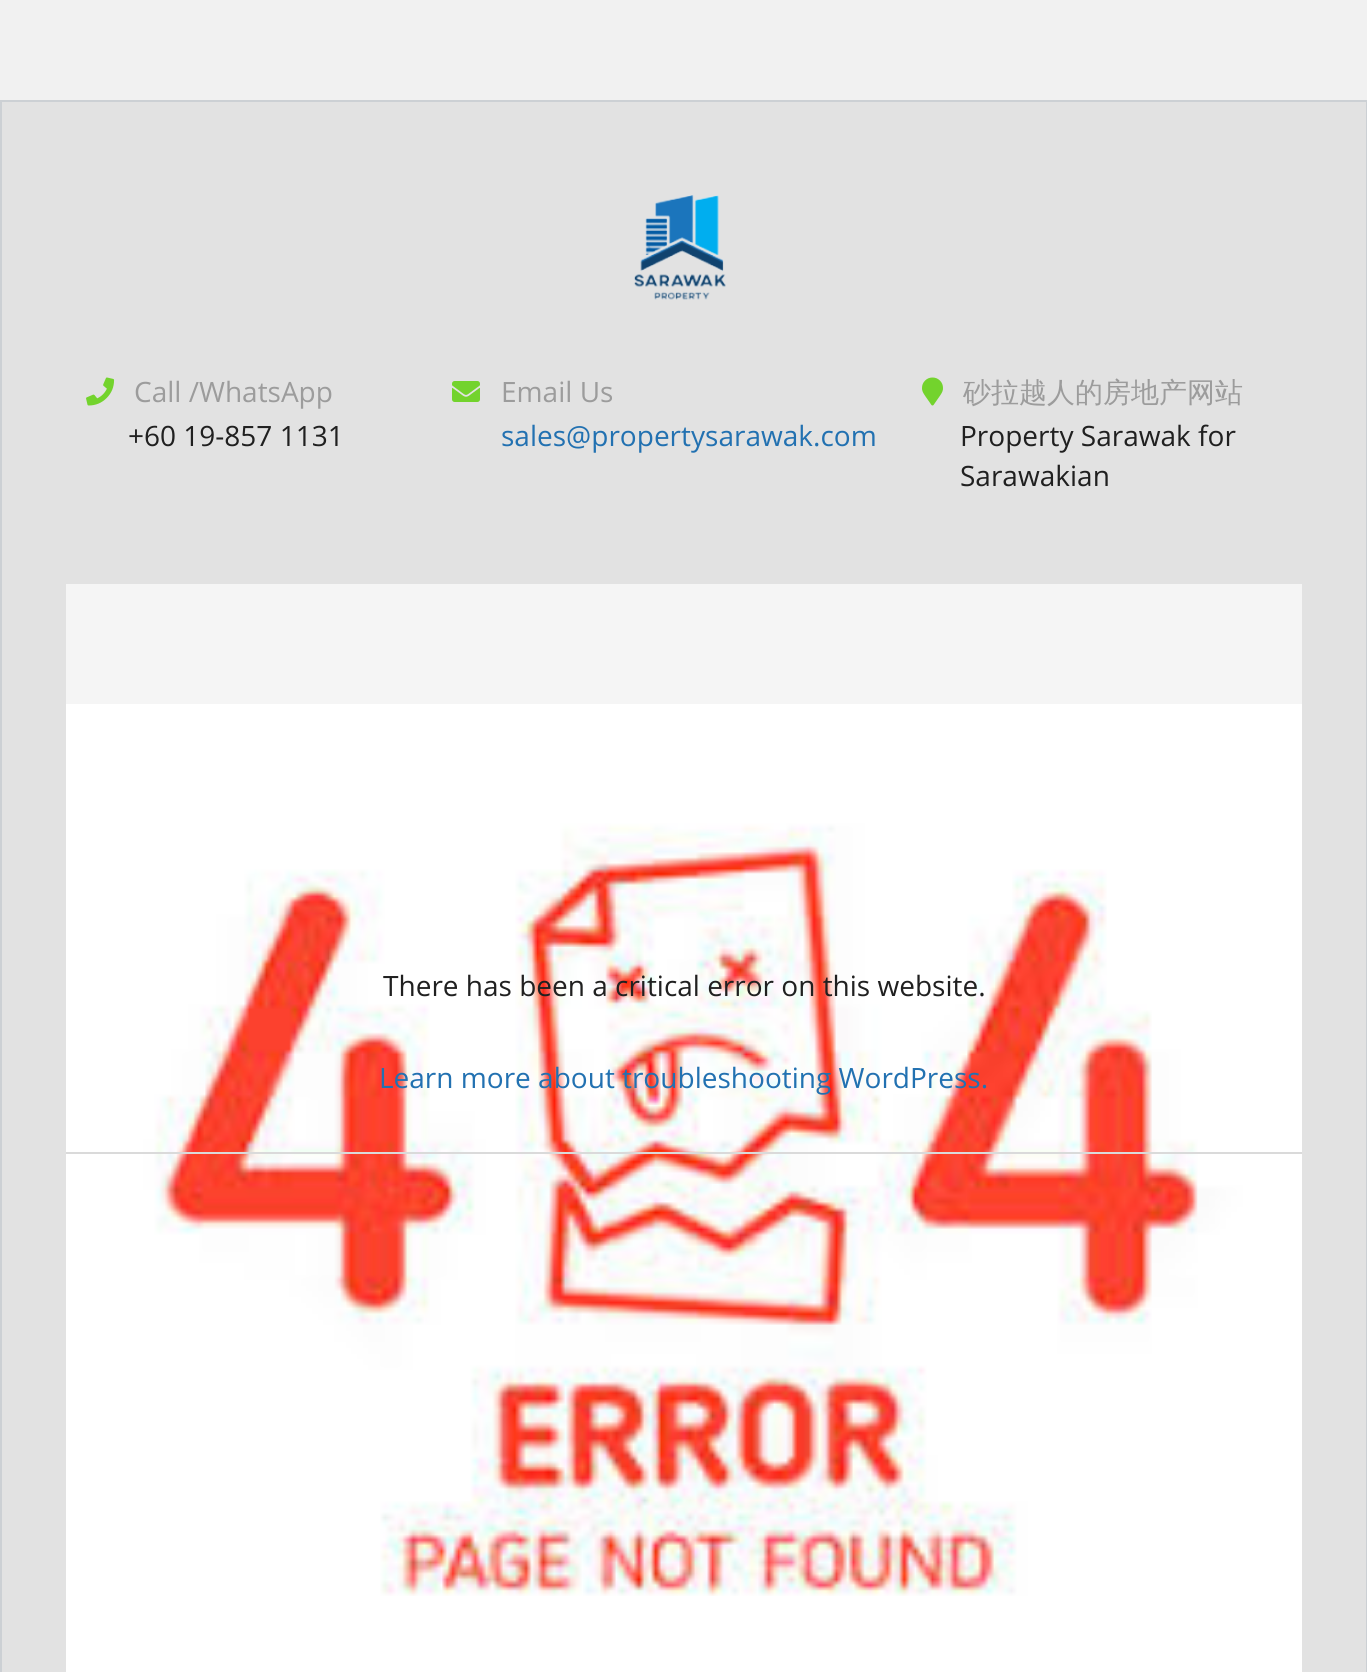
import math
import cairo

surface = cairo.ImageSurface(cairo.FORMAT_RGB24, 1367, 1672)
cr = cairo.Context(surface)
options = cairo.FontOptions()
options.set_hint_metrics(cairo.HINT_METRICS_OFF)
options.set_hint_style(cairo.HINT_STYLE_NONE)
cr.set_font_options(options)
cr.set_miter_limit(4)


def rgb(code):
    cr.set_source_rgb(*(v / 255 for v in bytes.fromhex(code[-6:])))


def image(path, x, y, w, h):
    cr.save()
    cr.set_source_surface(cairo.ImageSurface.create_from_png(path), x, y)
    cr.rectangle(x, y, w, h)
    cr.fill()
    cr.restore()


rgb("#f1f1f1")
cr.paint()
rgb("#e2e2e2")
cr.rectangle(1, 101, 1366, 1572)
cr.fill_preserve()
rgb("#ccd0d4")
cr.stroke()
image("img/1.png", 634, 195, 92, 105)
image("img/2.png", 86, 377, 29, 29)
image("img/3.png", 452, 381, 28, 21)
image("img/4.png", 922, 377, 21, 29)
rgb("#f5f5f5")
cr.rectangle(66, 584, 1236, 120)
cr.fill()
image("img/5.png", 66, 704, 1236, 968)
rgb("#dadada")
cr.rectangle(66, 1152, 1236, 2)
cr.fill()
cr.select_font_face("Open Sans")
cr.set_font_size(28)
rgb("#9c9c9c")
cr.move_to(134, 402)
cr.show_text("Call /WhatsApp")
rgb("#202020")
cr.move_to(128, 446)
cr.show_text("+60 19-857 1131")
rgb("#9c9c9c")
cr.move_to(501, 402)
cr.show_text("Email Us")
rgb("#2271b1")
cr.move_to(501, 446)
cr.show_text("sales@propertysarawak.com")
cr.select_font_face("WenQuanYi Zen Hei Medium")
rgb("#9c9c9c")
cr.move_to(963, 402)
cr.show_text("砂拉越人的房地产网站")
cr.select_font_face("Open Sans")
rgb("#202020")
for x, y, s in [
    (960, 446, "Property Sarawak for"),
    (960, 486, "Sarawakian"),
    (383, 996, "There has been a critical error on this website."),
]:
    cr.move_to(x, y)
    cr.show_text(s)
rgb("#2271b1")
cr.move_to(379, 1088)
cr.show_text("Learn more about troubleshooting WordPress.")
surface.write_to_png("page.png")
